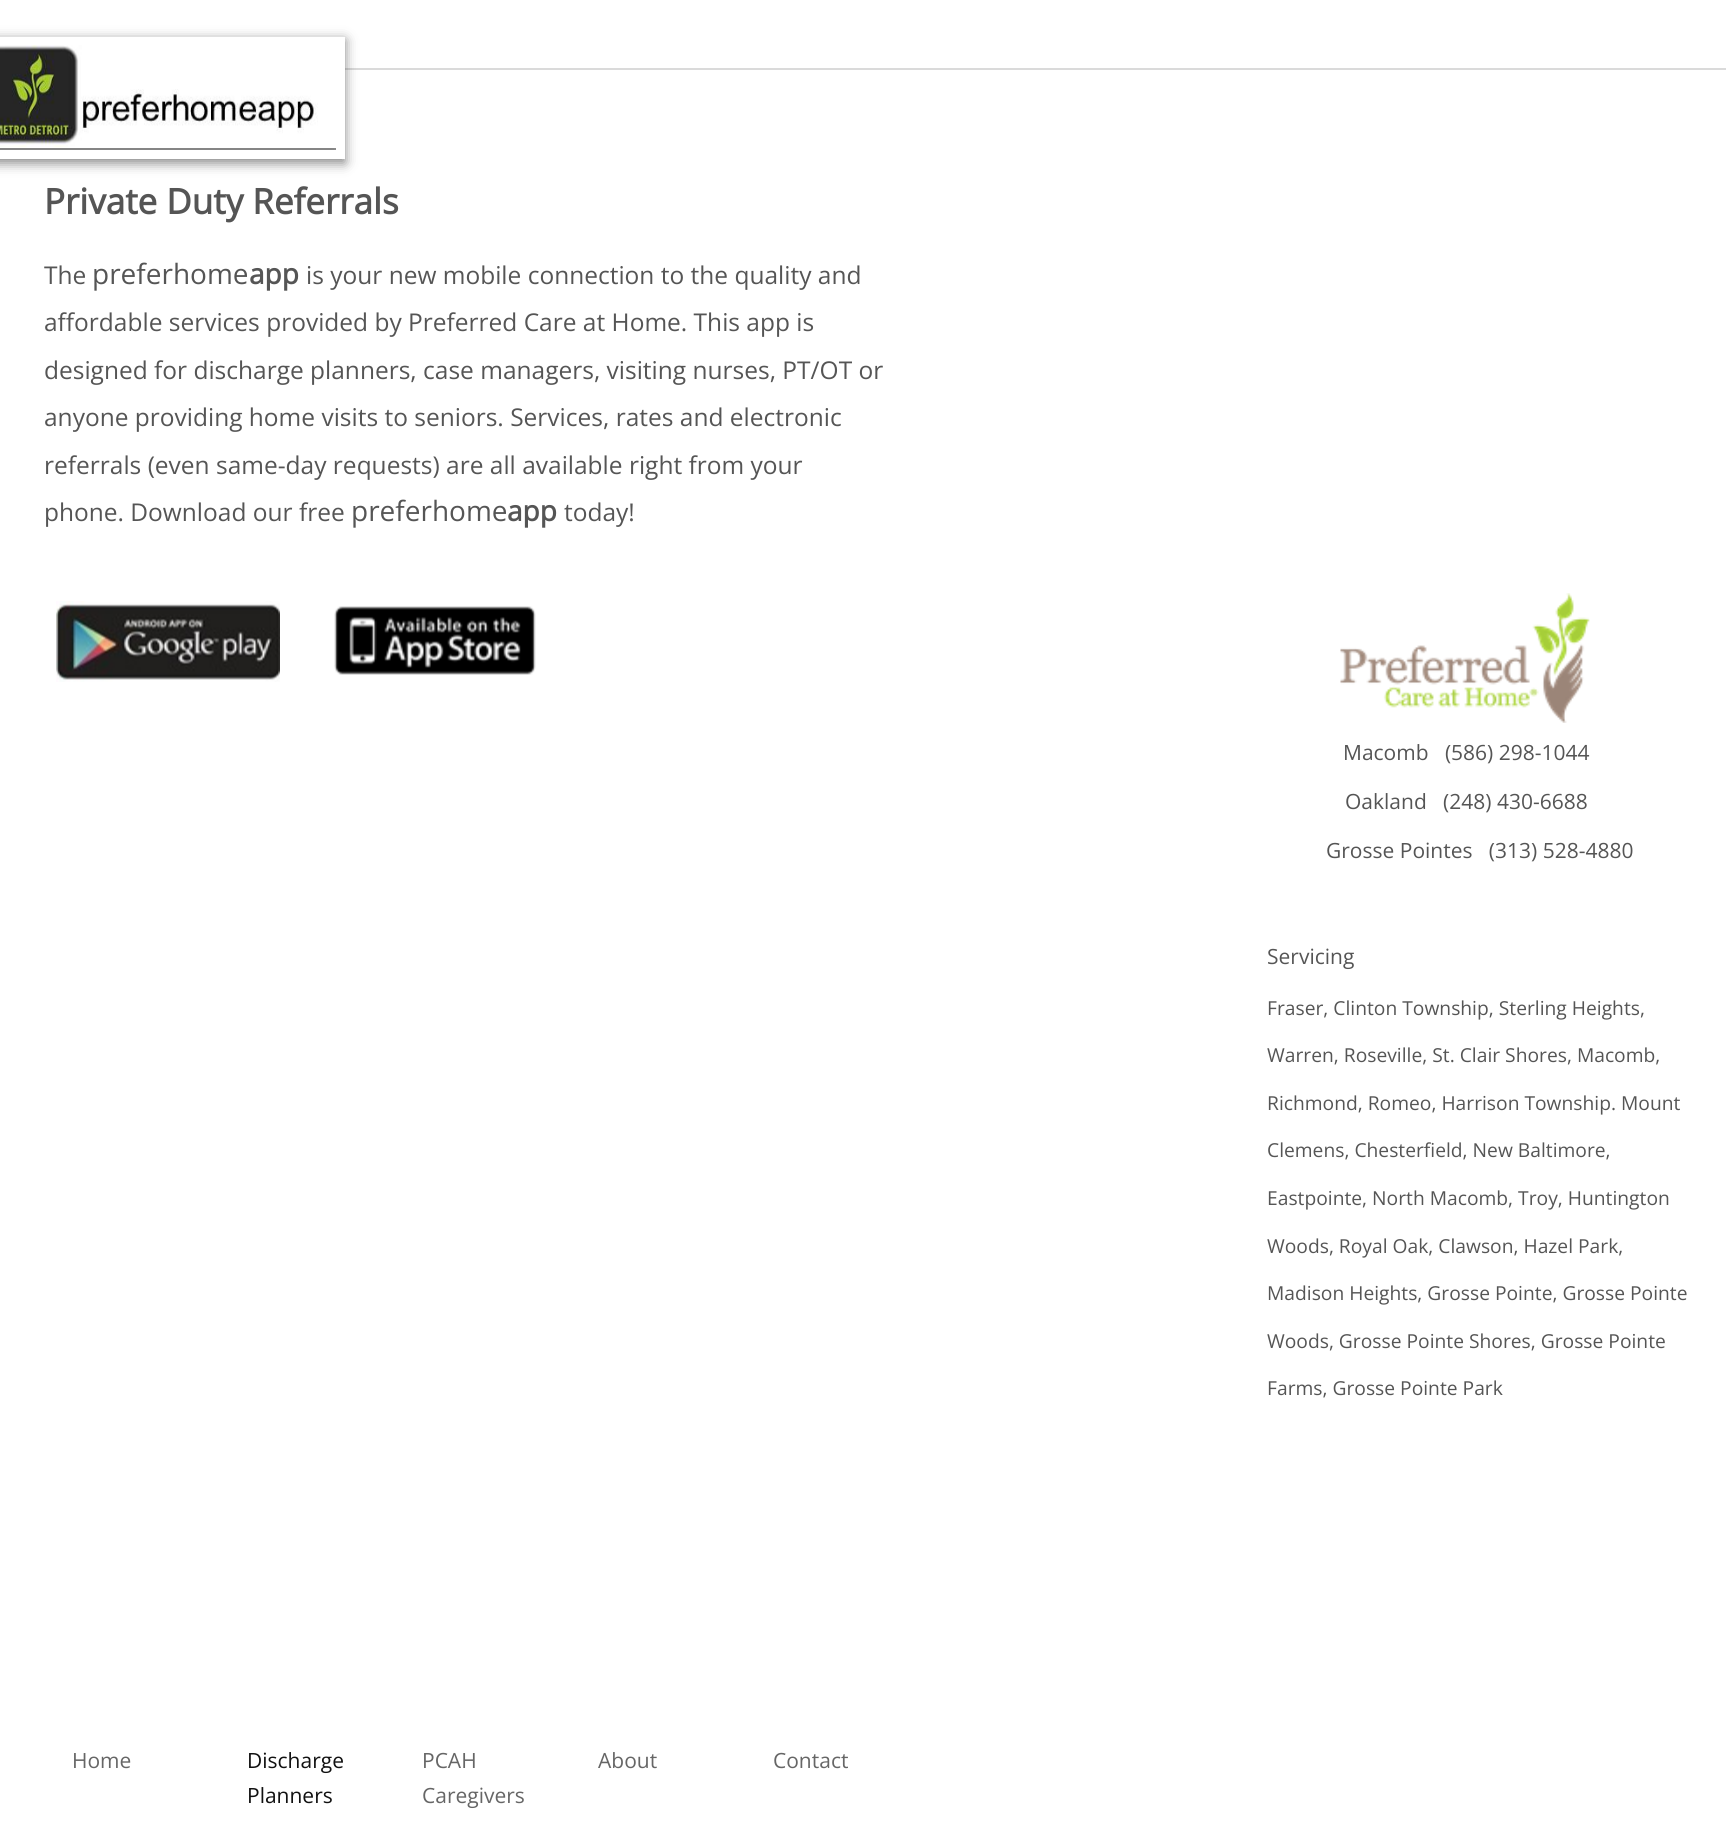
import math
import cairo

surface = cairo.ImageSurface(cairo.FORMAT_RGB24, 1726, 1833)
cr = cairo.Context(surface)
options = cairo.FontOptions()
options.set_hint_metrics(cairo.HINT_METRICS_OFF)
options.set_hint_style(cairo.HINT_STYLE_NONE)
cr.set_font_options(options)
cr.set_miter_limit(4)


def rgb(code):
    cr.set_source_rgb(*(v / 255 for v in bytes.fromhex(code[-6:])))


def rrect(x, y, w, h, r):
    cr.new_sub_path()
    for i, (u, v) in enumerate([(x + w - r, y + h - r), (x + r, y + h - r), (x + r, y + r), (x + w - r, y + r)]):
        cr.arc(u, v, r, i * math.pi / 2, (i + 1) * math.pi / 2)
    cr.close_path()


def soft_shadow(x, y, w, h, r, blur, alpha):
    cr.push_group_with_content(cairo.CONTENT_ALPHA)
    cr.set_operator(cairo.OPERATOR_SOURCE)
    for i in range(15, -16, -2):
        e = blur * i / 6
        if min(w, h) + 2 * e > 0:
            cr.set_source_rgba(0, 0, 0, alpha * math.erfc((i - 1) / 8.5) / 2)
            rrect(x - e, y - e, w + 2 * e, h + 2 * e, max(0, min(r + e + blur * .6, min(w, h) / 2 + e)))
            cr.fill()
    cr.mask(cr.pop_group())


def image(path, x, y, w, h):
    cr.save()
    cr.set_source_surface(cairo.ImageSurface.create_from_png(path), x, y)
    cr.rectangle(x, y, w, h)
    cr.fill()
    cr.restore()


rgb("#ffffff")
cr.paint()
rgb("#dadada")
cr.rectangle(345, 68, 1381, 2)
cr.fill()
rgb("#323232")
soft_shadow(-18, 40, 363, 123, 0, 6, 0.6)
cr.rectangle(-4.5, 41.5, 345, 113)
rgb("#ffffff")
cr.set_line_width(9)
cr.stroke()
image("img/1.png", 0, 45, 336, 103)
image("img/2.png", 56, 601, 224, 81)
image("img/3.png", 334, 606, 202, 69)
image("img/4.png", 1340, 593, 250, 130)
cr.select_font_face("Open Sans", cairo.FONT_SLANT_NORMAL, cairo.FONT_WEIGHT_BOLD)
cr.set_font_size(35)
rgb("#555555")
cr.move_to(44, 214)
cr.show_text("Private Duty Referrals")
cr.select_font_face("Open Sans")
cr.set_font_size(24.5)
cr.move_to(44, 284)
cr.show_text("The")
cr.set_font_size(28)
cr.move_to(92, 284)
cr.show_text("preferhome")
cr.select_font_face("Open Sans", cairo.FONT_SLANT_NORMAL, cairo.FONT_WEIGHT_BOLD)
cr.move_to(249, 284)
cr.show_text("app")
cr.select_font_face("Open Sans")
cr.set_font_size(24.5)
for x, y, s in [
    (306, 284, "is your new mobile connection to the quality and"),
    (44, 331, "affordable services provided by Preferred Care at Home. This app is"),
    (44, 379, "designed for discharge planners, case managers, visiting nurses, PT/OT or"),
    (44, 426, "anyone providing home visits to seniors. Services, rates and electronic"),
    (44, 474, "referrals (even same-day requests) are all available right from your"),
    (44, 521, "phone. Download our free"),
]:
    cr.move_to(x, y)
    cr.show_text(s)
cr.set_font_size(28)
cr.move_to(351, 521)
cr.show_text("preferhome")
cr.select_font_face("Open Sans", cairo.FONT_SLANT_NORMAL, cairo.FONT_WEIGHT_BOLD)
cr.move_to(507, 521)
cr.show_text("app")
cr.select_font_face("Open Sans")
cr.set_font_size(24.5)
cr.move_to(564, 521)
cr.show_text("today!")
cr.set_font_size(21)
for x, y, s in [
    (1343, 760, "Macomb   (586) 298-1044"),
    (1345, 809, "Oakland   (248) 430-6688"),
    (1326, 858, "Grosse Pointes   (313) 528-4880"),
    (1267, 964, "Servicing"),
]:
    cr.move_to(x, y)
    cr.show_text(s)
cr.set_font_size(19.25)
for x, y, s in [
    (1267, 1015, "Fraser, Clinton Township, Sterling Heights,"),
    (1267, 1062, "Warren, Roseville, St. Clair Shores, Macomb,"),
    (1267, 1110, "Richmond, Romeo, Harrison Township. Mount"),
    (1267, 1157, "Clemens, Chesterfield, New Baltimore,"),
    (1267, 1205, "Eastpointe, North Macomb, Troy, Huntington"),
    (1267, 1253, "Woods, Royal Oak, Clawson, Hazel Park,"),
    (1267, 1300, "Madison Heights, Grosse Pointe, Grosse Pointe"),
    (1267, 1348, "Woods, Grosse Pointe Shores, Grosse Pointe"),
    (1267, 1395, "Farms, Grosse Pointe Park"),
]:
    cr.move_to(x, y)
    cr.show_text(s)
cr.set_font_size(21)
rgb("#666666")
cr.move_to(72, 1768)
cr.show_text("Home")
rgb("#111111")
cr.move_to(247, 1768)
cr.show_text("Discharge")
cr.move_to(247, 1803)
cr.show_text("Planners")
rgb("#666666")
for x, y, s in [
    (422, 1768, "PCAH"),
    (422, 1803, "Caregivers"),
    (598, 1768, "About"),
    (773, 1768, "Contact"),
]:
    cr.move_to(x, y)
    cr.show_text(s)
surface.write_to_png("page.png")
